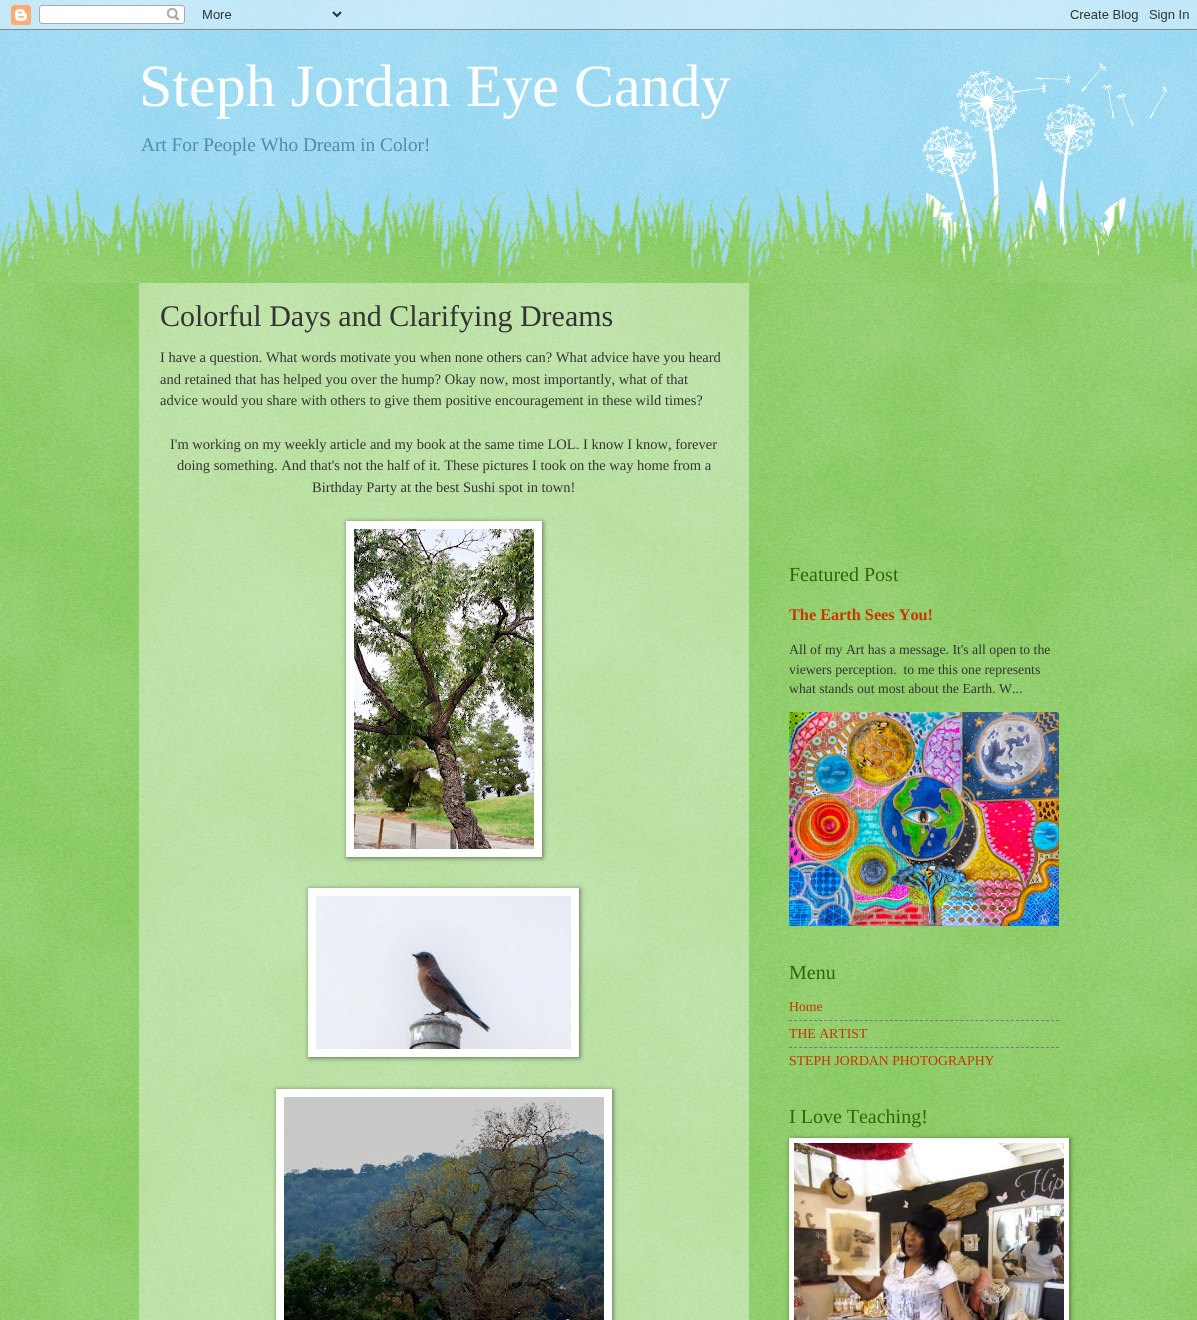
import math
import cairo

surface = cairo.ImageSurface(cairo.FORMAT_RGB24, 1197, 1320)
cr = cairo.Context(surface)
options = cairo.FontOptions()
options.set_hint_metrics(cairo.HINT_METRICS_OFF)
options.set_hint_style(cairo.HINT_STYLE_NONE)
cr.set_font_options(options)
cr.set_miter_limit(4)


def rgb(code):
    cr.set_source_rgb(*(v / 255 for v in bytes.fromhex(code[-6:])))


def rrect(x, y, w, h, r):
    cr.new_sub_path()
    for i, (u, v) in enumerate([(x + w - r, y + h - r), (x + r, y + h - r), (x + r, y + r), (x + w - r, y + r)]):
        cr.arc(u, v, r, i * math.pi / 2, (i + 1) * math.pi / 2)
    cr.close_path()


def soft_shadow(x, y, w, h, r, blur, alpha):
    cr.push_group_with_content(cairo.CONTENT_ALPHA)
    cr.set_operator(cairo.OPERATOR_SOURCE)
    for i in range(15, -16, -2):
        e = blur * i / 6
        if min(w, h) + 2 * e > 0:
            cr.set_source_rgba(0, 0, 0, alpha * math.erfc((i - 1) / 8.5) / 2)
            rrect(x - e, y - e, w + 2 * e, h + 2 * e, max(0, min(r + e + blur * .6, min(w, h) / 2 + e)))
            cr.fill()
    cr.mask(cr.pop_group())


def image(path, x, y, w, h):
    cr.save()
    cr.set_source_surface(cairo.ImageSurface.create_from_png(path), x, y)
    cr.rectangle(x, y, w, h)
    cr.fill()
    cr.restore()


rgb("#77ccee")
cr.paint()
image("img/1.png", 0, 0, 1197, 278)
image("img/2.png", 0, 0, 1197, 30)
rgb("#66bb33")
cr.rectangle(0, 283, 1197, 1037)
cr.fill()
image("img/3.png", 0, 283, 1197, 1037)
image("img/4.png", 917, 63, 250, 215)
image("img/5.png", 0, 187, 1197, 96)
cr.set_source_rgba(1, 1, 1, 0.4)
cr.rectangle(139, 283, 610, 1037)
cr.fill()
rgb("#000000")
soft_shadow(347, 522, 196, 336, 0, 2.5, 0.5)
rgb("#ffffff")
cr.rectangle(346, 521, 196, 336)
cr.fill()
image("img/6.png", 354, 529, 180, 320)
rgb("#000000")
soft_shadow(309, 889, 271, 169, 0, 2.5, 0.5)
rgb("#ffffff")
cr.rectangle(308, 888, 271, 169)
cr.fill()
image("img/7.png", 316, 896, 255, 153)
rgb("#000000")
soft_shadow(277, 1090, 336, 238, 0, 2.5, 0.5)
rgb("#ffffff")
cr.rectangle(276, 1089, 336, 231)
cr.fill()
image("img/8.png", 284, 1097, 320, 223)
image("img/9.png", 789, 712, 270, 214)
cr.new_path()
cr.move_to(789, 1020.5)
cr.line_to(1059, 1020.5)
rgb("#777777")
cr.set_line_width(1)
cr.set_dash([3, 2.04])
cr.stroke()
cr.new_path()
cr.move_to(789, 1047.5)
cr.line_to(1059, 1047.5)
cr.stroke()
rgb("#000000")
soft_shadow(790, 1139, 280, 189, 0, 2.5, 0.5)
rgb("#ffffff")
cr.rectangle(789, 1138, 280, 182)
cr.fill()
image("img/10.png", 794, 1143, 270, 177)
cr.select_font_face("Liberation Serif")
cr.set_font_size(60)
cr.move_to(139, 106)
cr.show_text("Steph Jordan Eye Candy")
cr.set_font_size(19.3)
rgb("#5588aa")
cr.move_to(141, 151)
cr.show_text("Art For People Who Dream in Color!")
cr.set_font_size(30)
rgb("#333333")
cr.move_to(160, 326)
cr.show_text("Colorful Days and Clarifying Dreams")
cr.set_font_size(14.5)
for x, y, s in [
    (160, 362, "I have a question. What words motivate you when none others can? What advice have you heard"),
    (160, 384, "and retained that has helped you over the hump? Okay now, most importantly, what of that"),
    (160, 405, "advice would you share with others to give them positive encouragement in these wild times?"),
    (170, 449, "I'm working on my weekly article and my book at the same time LOL. I know I know, forever"),
    (177, 470, "doing something. And that's not the half of it. These pictures I took on the way home from a"),
    (312, 492, "Birthday Party at the best Sushi spot in town!"),
]:
    cr.move_to(x, y)
    cr.show_text(s)
cr.set_font_size(20)
rgb("#336600")
cr.move_to(789, 581)
cr.show_text("Featured Post")
cr.select_font_face("Liberation Serif", cairo.FONT_SLANT_NORMAL, cairo.FONT_WEIGHT_BOLD)
cr.set_font_size(16.25)
rgb("#cc3300")
cr.move_to(789, 620)
cr.show_text("The Earth Sees You!")
cr.select_font_face("Liberation Serif")
cr.set_font_size(13.75)
rgb("#333333")
for x, y, s in [
    (789, 654, "All of my Art has a message. It's all open to the"),
    (789, 674, "viewers perception.  to me this one represents"),
    (789, 693, "what stands out most about the Earth. W..."),
]:
    cr.move_to(x, y)
    cr.show_text(s)
cr.set_font_size(20)
rgb("#336600")
cr.move_to(789, 979)
cr.show_text("Menu")
cr.set_font_size(13.75)
rgb("#cc3300")
for x, y, s in [
    (789, 1011, "Home"),
    (789, 1038, "THE ARTIST"),
    (789, 1065, "STEPH JORDAN PHOTOGRAPHY"),
]:
    cr.move_to(x, y)
    cr.show_text(s)
cr.set_font_size(20)
rgb("#336600")
cr.move_to(789, 1123)
cr.show_text("I Love Teaching!")
surface.write_to_png("page.png")
